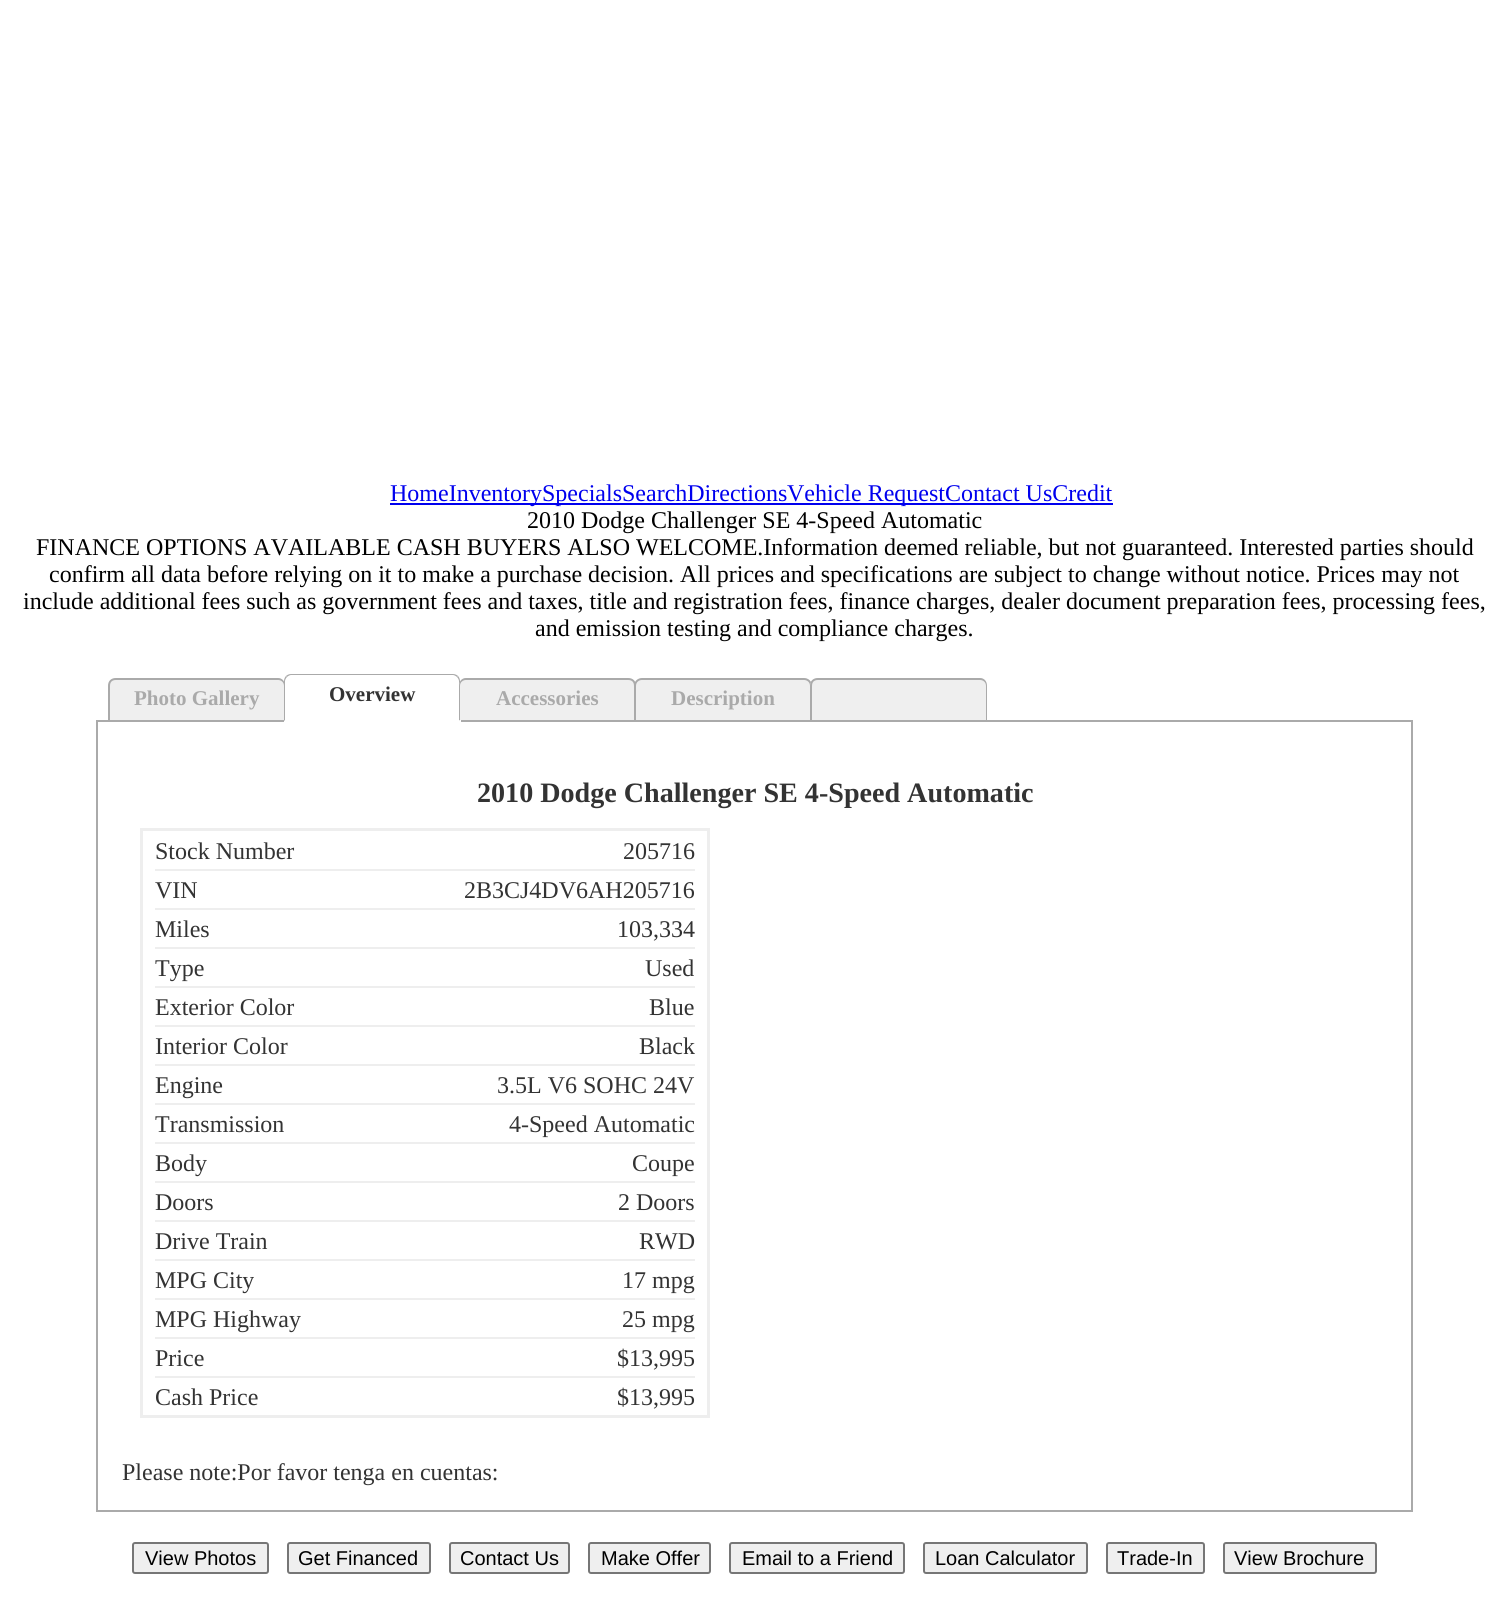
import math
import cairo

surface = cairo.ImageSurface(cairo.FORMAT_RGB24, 1508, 1619)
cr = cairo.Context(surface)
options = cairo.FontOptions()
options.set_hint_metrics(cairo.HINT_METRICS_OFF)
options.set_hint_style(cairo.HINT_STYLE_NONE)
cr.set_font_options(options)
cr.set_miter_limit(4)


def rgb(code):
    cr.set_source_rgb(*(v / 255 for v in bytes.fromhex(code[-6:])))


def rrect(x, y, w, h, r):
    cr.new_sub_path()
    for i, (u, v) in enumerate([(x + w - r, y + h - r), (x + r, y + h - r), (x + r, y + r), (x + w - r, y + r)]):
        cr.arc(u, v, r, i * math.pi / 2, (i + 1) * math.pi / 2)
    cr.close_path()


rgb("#ffffff")
cr.paint()
for x, y, w, h, color in [
    (390, 503, 152, 2, "#0000ee"),
    (542, 503, 145, 2, "#0000ee"),
    (687, 503, 258, 2, "#0000ee"),
    (945, 503, 168, 2, "#0000ee"),
]:
    rgb(color)
    cr.rectangle(x, y, w, h)
    cr.fill()
rgb("#efefef")
cr.new_path()
cr.move_to(116, 678)
cr.line_to(277, 678)
cr.curve_to(281.5, 678, 285, 681.5, 285, 686)
cr.line_to(285, 720)
cr.line_to(108, 720)
cr.line_to(108, 686)
cr.curve_to(108, 681.5, 111.5, 678, 116, 678)
cr.close_path()
cr.fill()
rgb("#aaaaaa")
cr.set_fill_rule(cairo.FILL_RULE_EVEN_ODD)
cr.new_path()
cr.move_to(116, 678)
cr.line_to(278, 678)
cr.curve_to(282, 678, 285, 681, 285, 686)
cr.line_to(285, 720)
cr.line_to(108, 720)
cr.line_to(108, 686)
cr.curve_to(108, 681, 111, 678, 116, 678)
cr.close_path()
cr.move_to(116, 680)
cr.line_to(278, 680)
cr.curve_to(281, 680, 284, 682, 284, 686)
cr.line_to(284, 720)
cr.line_to(110, 720)
cr.line_to(110, 686)
cr.curve_to(110, 682, 112, 680, 116, 680)
cr.close_path()
cr.fill()
cr.rectangle(97, 721, 1315, 790)
cr.stroke()
rgb("#ffffff")
cr.new_path()
cr.move_to(292, 674)
cr.line_to(453, 674)
cr.curve_to(457.5, 674, 461, 677.5, 461, 682)
cr.line_to(461, 722)
cr.line_to(284, 722)
cr.line_to(284, 682)
cr.curve_to(284, 677.5, 287.5, 674, 292, 674)
cr.close_path()
cr.fill()
rgb("#aaaaaa")
cr.set_fill_rule(cairo.FILL_RULE_WINDING)
cr.new_path()
cr.move_to(291, 674)
cr.curve_to(289, 674, 287, 675, 286, 676)
cr.line_to(287, 677)
cr.curve_to(288, 676, 290, 675, 291, 675)
cr.line_to(453, 675)
cr.curve_to(454, 675, 456, 676, 457, 677)
cr.line_to(458, 676)
cr.curve_to(457, 675, 455, 674, 453, 674)
cr.close_path()
cr.fill()
cr.new_path()
cr.move_to(460, 721)
cr.line_to(460, 681)
cr.curve_to(460, 679, 459, 677, 458, 676)
cr.line_to(457, 677)
cr.curve_to(458, 678, 459, 680, 459, 681)
cr.line_to(459, 720)
cr.close_path()
cr.fill()
rgb("#ffffff")
cr.new_path()
cr.move_to(284, 722)
cr.line_to(285, 720)
cr.line_to(459, 720)
cr.line_to(460, 721)
cr.line_to(460, 722)
cr.close_path()
cr.fill()
rgb("#aaaaaa")
cr.new_path()
cr.move_to(286, 676)
cr.curve_to(285, 677, 284, 679, 284, 681)
cr.line_to(284, 721)
cr.line_to(285, 720)
cr.line_to(285, 681)
cr.curve_to(285, 680, 286, 678, 287, 677)
cr.close_path()
cr.fill()
rgb("#efefef")
cr.new_path()
cr.move_to(467, 678)
cr.line_to(628, 678)
cr.curve_to(632.5, 678, 636, 681.5, 636, 686)
cr.line_to(636, 720)
cr.line_to(459, 720)
cr.line_to(459, 686)
cr.curve_to(459, 681.5, 462.5, 678, 467, 678)
cr.close_path()
cr.fill()
rgb("#aaaaaa")
cr.set_fill_rule(cairo.FILL_RULE_EVEN_ODD)
cr.new_path()
cr.move_to(466, 678)
cr.line_to(628, 678)
cr.curve_to(633, 678, 636, 681, 636, 686)
cr.line_to(636, 720)
cr.line_to(459, 720)
cr.line_to(459, 686)
cr.curve_to(459, 681, 462, 678, 466, 678)
cr.close_path()
cr.move_to(466, 680)
cr.line_to(628, 680)
cr.curve_to(632, 680, 634, 682, 634, 686)
cr.line_to(634, 720)
cr.line_to(460, 720)
cr.line_to(460, 686)
cr.curve_to(460, 682, 463, 680, 466, 680)
cr.close_path()
cr.fill()
rgb("#efefef")
cr.new_path()
cr.move_to(643, 678)
cr.line_to(804, 678)
cr.curve_to(808.5, 678, 812, 681.5, 812, 686)
cr.line_to(812, 720)
cr.line_to(635, 720)
cr.line_to(635, 686)
cr.curve_to(635, 681.5, 638.5, 678, 643, 678)
cr.close_path()
cr.fill()
rgb("#aaaaaa")
cr.new_path()
cr.move_to(642, 678)
cr.line_to(804, 678)
cr.curve_to(808, 678, 812, 681, 812, 686)
cr.line_to(812, 720)
cr.line_to(634, 720)
cr.line_to(634, 686)
cr.curve_to(634, 681, 638, 678, 642, 678)
cr.close_path()
cr.move_to(642, 680)
cr.line_to(804, 680)
cr.curve_to(807, 680, 810, 682, 810, 686)
cr.line_to(810, 720)
cr.line_to(636, 720)
cr.line_to(636, 686)
cr.curve_to(636, 682, 639, 680, 642, 680)
cr.close_path()
cr.fill()
rgb("#efefef")
cr.new_path()
cr.move_to(818, 678)
cr.line_to(979, 678)
cr.curve_to(983.5, 678, 987, 681.5, 987, 686)
cr.line_to(987, 720)
cr.line_to(810, 720)
cr.line_to(810, 686)
cr.curve_to(810, 681.5, 813.5, 678, 818, 678)
cr.close_path()
cr.fill()
rgb("#aaaaaa")
cr.new_path()
cr.move_to(818, 678)
cr.line_to(980, 678)
cr.curve_to(984, 678, 987, 681, 987, 686)
cr.line_to(987, 720)
cr.line_to(810, 720)
cr.line_to(810, 686)
cr.curve_to(810, 681, 813, 678, 818, 678)
cr.close_path()
cr.move_to(818, 680)
cr.line_to(980, 680)
cr.curve_to(983, 680, 986, 682, 986, 686)
cr.line_to(986, 720)
cr.line_to(812, 720)
cr.line_to(812, 686)
cr.curve_to(812, 682, 814, 680, 818, 680)
cr.close_path()
cr.fill()
cr.rectangle(141.5, 829.5, 567, 587)
rgb("#eeeeee")
cr.set_line_width(3)
cr.stroke()
for x, y, w, h, color in [
    (155, 869, 540, 2, "#eeeeee"),
    (155, 908, 540, 2, "#eeeeee"),
    (155, 947, 540, 2, "#eeeeee"),
    (155, 986, 540, 2, "#eeeeee"),
    (155, 1025, 540, 2, "#eeeeee"),
    (155, 1064, 540, 2, "#eeeeee"),
    (155, 1103, 540, 2, "#eeeeee"),
    (155, 1142, 540, 2, "#eeeeee"),
    (155, 1181, 540, 2, "#eeeeee"),
    (155, 1220, 540, 2, "#eeeeee"),
    (155, 1259, 540, 2, "#eeeeee"),
    (155, 1298, 540, 2, "#eeeeee"),
    (155, 1337, 540, 2, "#eeeeee"),
    (155, 1376, 540, 2, "#eeeeee"),
]:
    rgb(color)
    cr.rectangle(x, y, w, h)
    cr.fill()
rgb("#efefef")
rrect(133, 1543, 135, 30, 2)
cr.fill_preserve()
rgb("#767676")
cr.set_line_width(2)
cr.stroke()
rgb("#efefef")
rrect(288, 1543, 142, 30, 2)
cr.fill_preserve()
rgb("#767676")
cr.stroke()
rgb("#efefef")
rrect(450, 1543, 119, 30, 2)
cr.fill_preserve()
rgb("#767676")
cr.stroke()
rgb("#efefef")
rrect(589, 1543, 121, 30, 2)
cr.fill_preserve()
rgb("#767676")
cr.stroke()
rgb("#efefef")
rrect(730, 1543, 174, 30, 2)
cr.fill_preserve()
rgb("#767676")
cr.stroke()
rgb("#efefef")
rrect(924, 1543, 163, 30, 2)
cr.fill_preserve()
rgb("#767676")
cr.stroke()
rgb("#efefef")
rrect(1107, 1543, 97, 30, 2)
cr.fill_preserve()
rgb("#767676")
cr.stroke()
rgb("#efefef")
rrect(1224, 1543, 152, 30, 2)
cr.fill_preserve()
rgb("#767676")
cr.stroke()
cr.select_font_face("Liberation Serif")
cr.set_font_size(24)
rgb("#0000ee")
for x, y, s in [
    (390, 501, "HomeInventory"),
    (542, 501, "SpecialsSearchDirections"),
    (787, 501, "Vehicle RequestContact UsCredit"),
]:
    cr.move_to(x, y)
    cr.show_text(s)
rgb("#000000")
for x, y, s in [
    (527, 528, "2010 Dodge Challenger SE 4-Speed Automatic"),
    (36, 555, "FINANCE OPTIONS AVAILABLE CASH BUYERS ALSO WELCOME.Information deemed reliable, but not guaranteed. Interested parties should"),
    (49, 582, "confirm all data before relying on it to make a purchase decision. All prices and specifications are subject to change without notice. Prices may not"),
    (23, 609, "include additional fees such as government fees and taxes, title and registration fees, finance charges, dealer document preparation fees, processing fees,"),
    (535, 636, "and emission testing and compliance charges."),
]:
    cr.move_to(x, y)
    cr.show_text(s)
cr.select_font_face("Liberation Serif", cairo.FONT_SLANT_NORMAL, cairo.FONT_WEIGHT_BOLD)
cr.set_font_size(21)
rgb("#aaaaaa")
cr.move_to(134, 705)
cr.show_text("Photo Gallery")
rgb("#333333")
cr.move_to(329, 701)
cr.show_text("Overview")
rgb("#aaaaaa")
cr.move_to(496, 705)
cr.show_text("Accessories")
cr.move_to(671, 705)
cr.show_text("Description")
cr.set_font_size(28.1)
rgb("#333333")
cr.move_to(477, 802)
cr.show_text("2010 Dodge Challenger SE 4-Speed Automatic")
cr.select_font_face("Liberation Serif")
cr.set_font_size(24)
for x, y, s in [
    (155, 859, "Stock Number"),
    (623, 859, "205716"),
    (155, 898, "VIN"),
    (464, 898, "2B3CJ4DV6AH205716"),
    (155, 937, "Miles"),
    (617, 937, "103,334"),
    (155, 976, "Type"),
    (645, 976, "Used"),
    (155, 1015, "Exterior Color"),
    (649, 1015, "Blue"),
    (155, 1054, "Interior Color"),
    (639, 1054, "Black"),
    (155, 1093, "Engine"),
    (497, 1093, "3.5L V6 SOHC 24V"),
    (155, 1132, "Transmission"),
    (509, 1132, "4-Speed Automatic"),
    (155, 1171, "Body"),
    (632, 1171, "Coupe"),
    (155, 1210, "Doors"),
    (618, 1210, "2 Doors"),
    (155, 1249, "Drive Train"),
    (639, 1249, "RWD"),
    (155, 1288, "MPG City"),
    (622, 1288, "17 mpg"),
    (155, 1327, "MPG Highway"),
    (622, 1327, "25 mpg"),
    (155, 1366, "Price"),
    (617, 1366, "$13,995"),
    (155, 1405, "Cash Price"),
    (617, 1405, "$13,995"),
    (122, 1480, "Please note:Por favor tenga en cuentas:"),
]:
    cr.move_to(x, y)
    cr.show_text(s)
cr.select_font_face("Liberation Sans")
cr.set_font_size(20)
rgb("#000000")
for x, y, s in [
    (145, 1565, "View Photos"),
    (298, 1565, "Get Financed"),
    (460, 1565, "Contact Us"),
    (601, 1565, "Make Offer"),
    (742, 1565, "Email to a Friend"),
    (935, 1565, "Loan Calculator"),
    (1117, 1565, "Trade-In"),
    (1234, 1565, "View Brochure"),
]:
    cr.move_to(x, y)
    cr.show_text(s)
surface.write_to_png("page.png")
